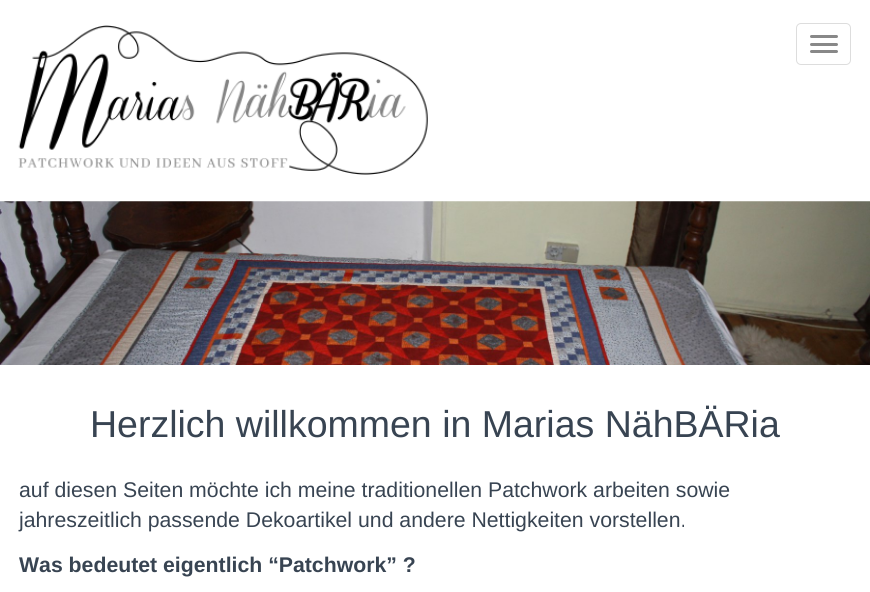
import math
import cairo

surface = cairo.ImageSurface(cairo.FORMAT_RGB24, 870, 592)
cr = cairo.Context(surface)
options = cairo.FontOptions()
options.set_hint_metrics(cairo.HINT_METRICS_OFF)
options.set_hint_style(cairo.HINT_STYLE_NONE)
cr.set_font_options(options)
cr.set_miter_limit(4)


def rgb(code):
    cr.set_source_rgb(*(v / 255 for v in bytes.fromhex(code[-6:])))


def rrect(x, y, w, h, r):
    cr.new_sub_path()
    for i, (u, v) in enumerate([(x + w - r, y + h - r), (x + r, y + h - r), (x + r, y + r), (x + w - r, y + r)]):
        cr.arc(u, v, r, i * math.pi / 2, (i + 1) * math.pi / 2)
    cr.close_path()


def image(path, x, y, w, h):
    cr.save()
    cr.set_source_surface(cairo.ImageSurface.create_from_png(path), x, y)
    cr.rectangle(x, y, w, h)
    cr.fill()
    cr.restore()


rgb("#ffffff")
cr.paint()
image("img/1.png", 18, 25, 410, 150)
rrect(796.5, 23.5, 54, 41, 4.5)
rgb("#dddddd")
cr.set_line_width(1)
cr.stroke()
rgb("#888888")
rrect(810, 35, 28, 3, 1.5)
cr.fill()
rrect(810, 43, 28, 3, 1.5)
cr.fill()
rrect(810, 50, 28, 3, 1.5)
cr.fill()
image("img/2.png", 0, 201, 870, 164)
cr.select_font_face("Liberation Sans")
cr.set_font_size(37.5)
rgb("#384452")
cr.move_to(90, 437)
cr.show_text("Herzlich willkommen in Marias NähBÄRia")
cr.set_font_size(21.25)
cr.move_to(19, 497)
cr.show_text("auf diesen Seiten möchte ich meine traditionellen Patchwork arbeiten sowie")
cr.move_to(19, 527)
cr.show_text("jahreszeitlich passende Dekoartikel und andere Nettigkeiten vorstellen.")
cr.select_font_face("Liberation Sans", cairo.FONT_SLANT_NORMAL, cairo.FONT_WEIGHT_BOLD)
cr.move_to(19, 572)
cr.show_text("Was bedeutet eigentlich “Patchwork” ?")
surface.write_to_png("page.png")
